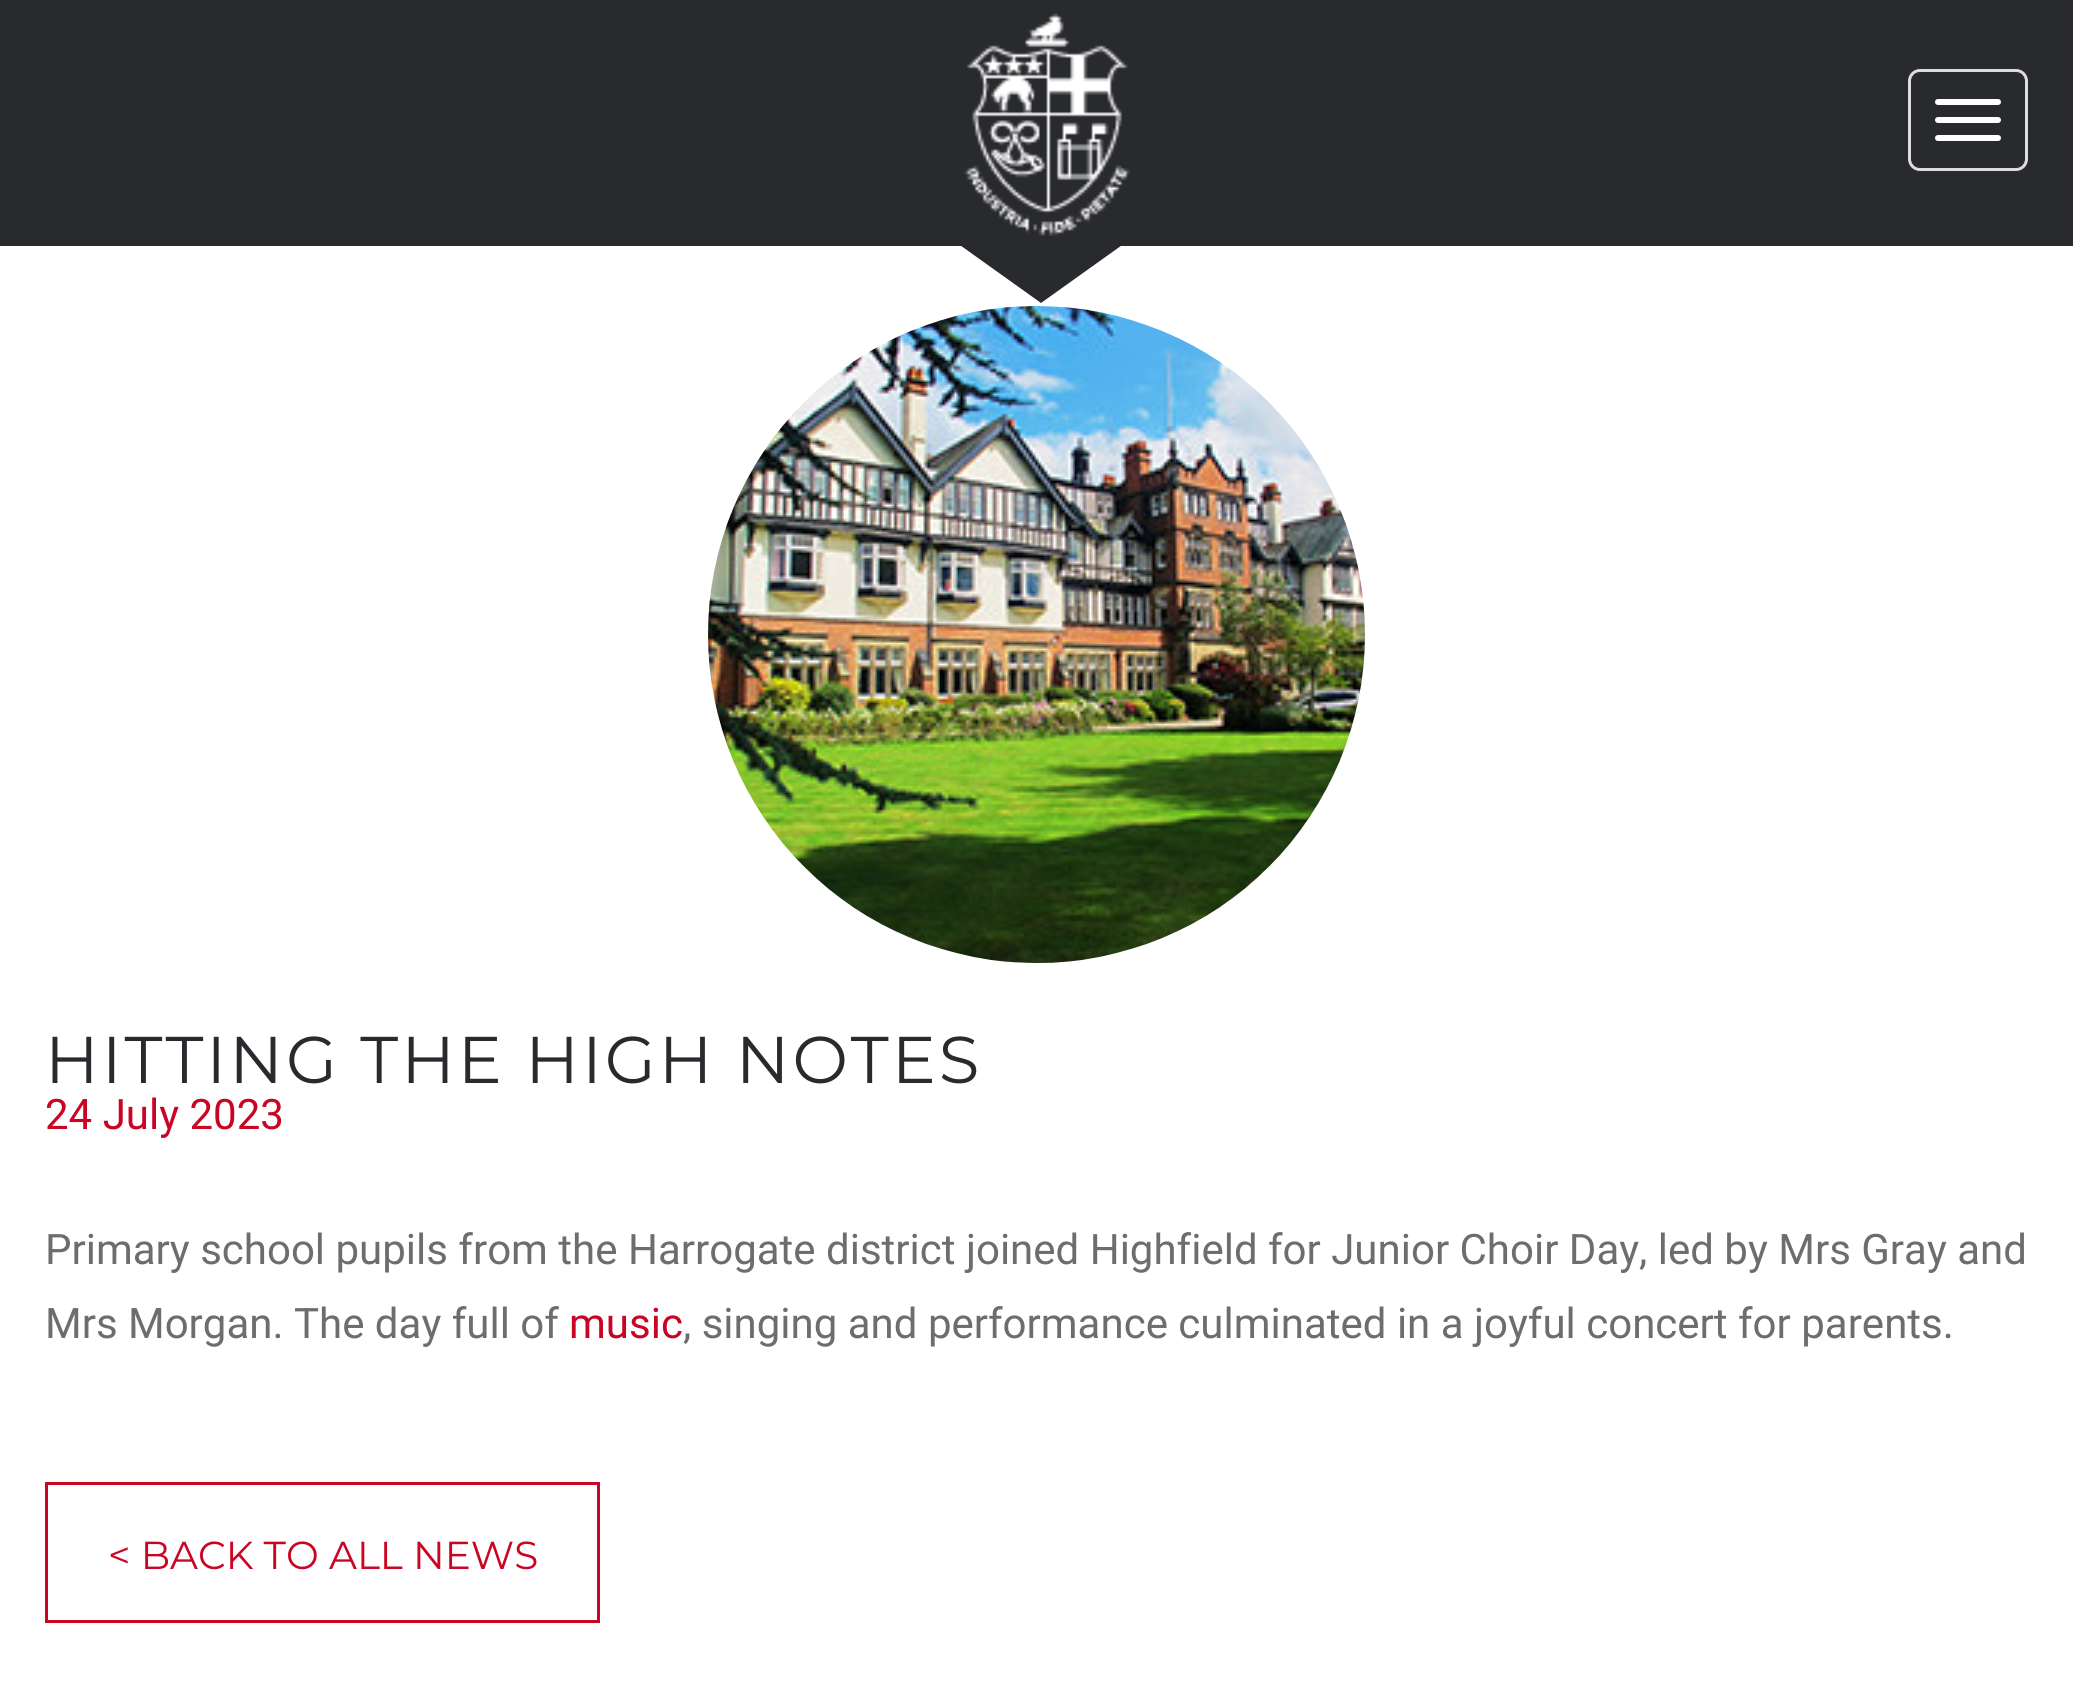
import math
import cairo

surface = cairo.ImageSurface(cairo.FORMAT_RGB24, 2073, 1693)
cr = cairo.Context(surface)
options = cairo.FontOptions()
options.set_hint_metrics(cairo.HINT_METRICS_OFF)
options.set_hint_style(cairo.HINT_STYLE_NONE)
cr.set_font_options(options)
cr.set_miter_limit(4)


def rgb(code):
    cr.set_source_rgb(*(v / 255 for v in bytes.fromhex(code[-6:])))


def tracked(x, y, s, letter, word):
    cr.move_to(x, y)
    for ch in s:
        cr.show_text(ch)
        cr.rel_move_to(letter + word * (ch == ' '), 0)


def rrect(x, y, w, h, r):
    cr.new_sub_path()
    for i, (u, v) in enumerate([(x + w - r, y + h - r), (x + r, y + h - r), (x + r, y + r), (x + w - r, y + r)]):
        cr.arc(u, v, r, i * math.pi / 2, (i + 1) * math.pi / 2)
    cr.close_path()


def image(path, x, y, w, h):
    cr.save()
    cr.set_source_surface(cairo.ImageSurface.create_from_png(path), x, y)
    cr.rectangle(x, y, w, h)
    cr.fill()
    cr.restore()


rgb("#ffffff")
cr.paint()
rgb("#292a2e")
cr.rectangle(0, 0, 2073, 246)
cr.fill()
image("img/1.png", 964, 13, 166, 223)
rrect(1909.5, 70.5, 117, 99, 10.5)
rgb("#dddddd")
cr.set_line_width(3)
cr.stroke()
rgb("#ffffff")
rrect(1935, 99, 66, 6, 3)
cr.fill()
rrect(1935, 117, 66, 6, 3)
cr.fill()
rrect(1935, 135, 66, 6, 3)
cr.fill()
rgb("#292a2e")
cr.new_path()
cr.move_to(957, 243)
cr.line_to(1125, 243)
cr.line_to(1041, 303)
cr.close_path()
cr.fill()
image("img/2.png", 708, 306, 657, 657)
cr.rectangle(46.5, 1483.5, 552, 138)
rgb("#ca0524")
cr.stroke()
cr.select_font_face("Montserrat")
cr.set_font_size(66)
rgb("#292a2e")
tracked(45, 1083, "HITTING THE HIGH NOTES", 3, 0)
cr.select_font_face("Roboto")
cr.set_font_size(42)
rgb("#ca0524")
cr.move_to(45, 1129)
cr.show_text("24 July 2023")
rgb("#6d6d6e")
cr.move_to(45, 1264)
cr.show_text("Primary school pupils from the Harrogate district joined Highfield for Junior Choir Day, led by Mrs Gray and")
cr.move_to(45, 1338)
cr.show_text("Mrs Morgan. The day full of")
rgb("#ca0524")
cr.move_to(569, 1338)
cr.show_text("music")
rgb("#6d6d6e")
cr.move_to(683, 1338)
cr.show_text(", singing and performance culminated in a joyful concert for parents.")
cr.select_font_face("Montserrat")
cr.set_font_size(39)
rgb("#ca0524")
cr.move_to(108, 1569)
cr.show_text("< BACK TO ALL NEWS")
surface.write_to_png("page.png")
